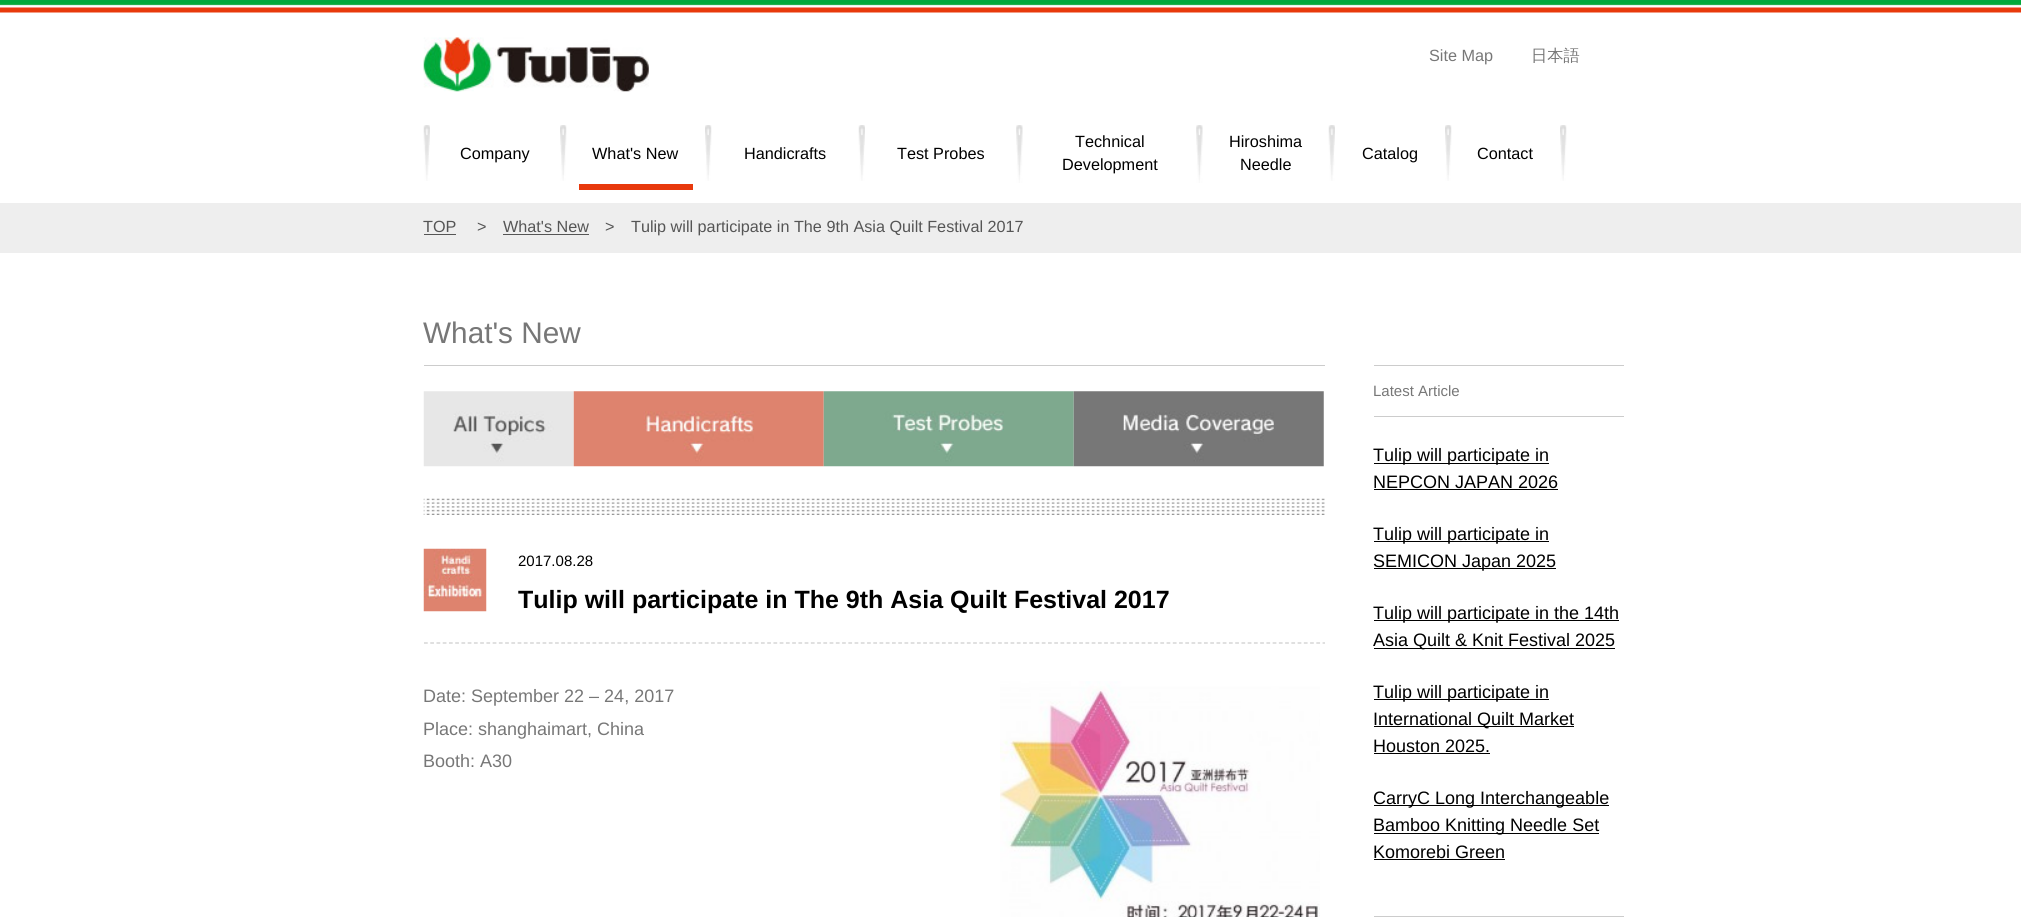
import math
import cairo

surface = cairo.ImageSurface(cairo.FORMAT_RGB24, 2021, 917)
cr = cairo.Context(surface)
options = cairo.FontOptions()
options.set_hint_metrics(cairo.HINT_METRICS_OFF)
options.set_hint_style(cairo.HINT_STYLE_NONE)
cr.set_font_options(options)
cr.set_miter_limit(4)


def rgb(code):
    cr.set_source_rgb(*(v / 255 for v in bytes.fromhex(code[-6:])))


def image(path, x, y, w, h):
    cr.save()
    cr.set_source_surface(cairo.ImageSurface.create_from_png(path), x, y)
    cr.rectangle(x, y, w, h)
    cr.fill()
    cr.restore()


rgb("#ffffff")
cr.paint()
image("img/1.png", 0, 0, 2021, 13)
image("img/2.png", 423, 37, 226, 55)
image("img/3.png", 423, 125, 7, 56)
image("img/4.png", 560, 125, 7, 56)
image("img/4.png", 705, 125, 7, 56)
rgb("#e8390d")
cr.rectangle(579, 184, 114, 6)
cr.fill()
image("img/5.png", 858, 125, 7, 56)
image("img/6.png", 1016, 125, 7, 58)
image("img/6.png", 1196, 125, 7, 58)
image("img/3.png", 1328, 125, 7, 56)
image("img/7.png", 1445, 125, 7, 56)
image("img/4.png", 1560, 125, 7, 56)
for x, y, w, h, color in [
    (0, 203, 2021, 50, "#eeeeee"),
    (424, 234, 32, 1, "#555555"),
    (503, 234, 86, 1, "#555555"),
    (424, 365, 901, 1, "#cccccc"),
]:
    rgb(color)
    cr.rectangle(x, y, w, h)
    cr.fill()
image("img/8.png", 423, 391, 151, 76)
image("img/9.png", 573, 391, 251, 76)
image("img/10.png", 823, 391, 251, 76)
image("img/11.png", 1073, 391, 251, 76)
image("img/12.png", 423, 498, 902, 17)
cr.new_path()
cr.move_to(424, 643)
cr.line_to(1325, 643)
cr.set_line_width(1.2)
cr.set_dash([3.75, 2.49])
cr.stroke()
image("img/13.png", 423, 548, 64, 64)
image("img/14.png", 1000, 681, 320, 236)
for x, y, w, h, color in [
    (1374, 365, 250, 1, "#cccccc"),
    (1374, 416, 250, 1, "#cccccc"),
    (1374, 463, 175, 1, "#000000"),
    (1374, 489, 184, 1, "#000000"),
    (1374, 541, 175, 1, "#000000"),
    (1374, 568, 182, 1, "#000000"),
    (1374, 620, 245, 1, "#000000"),
    (1374, 648, 241, 1, "#000000"),
    (1374, 699, 175, 1, "#000000"),
    (1374, 726, 200, 1, "#000000"),
    (1374, 753, 116, 1, "#000000"),
    (1374, 805, 235, 1, "#000000"),
    (1374, 833, 225, 1, "#000000"),
    (1374, 859, 131, 1, "#000000"),
    (1374, 916, 250, 1, "#cccccc"),
]:
    rgb(color)
    cr.rectangle(x, y, w, h)
    cr.fill()
cr.select_font_face("Liberation Sans")
cr.set_font_size(16.25)
rgb("#777777")
cr.move_to(1429, 61)
cr.show_text("Site Map")
cr.select_font_face("WenQuanYi Zen Hei Medium")
cr.move_to(1531, 61)
cr.show_text("日本語")
cr.select_font_face("Liberation Sans")
rgb("#000000")
for x, y, s in [
    (460, 159, "Company"),
    (592, 159, "What's New"),
    (744, 159, "Handicrafts"),
    (897, 159, "Test Probes"),
    (1075, 147, "Technical"),
    (1062, 170, "Development"),
    (1229, 147, "Hiroshima"),
    (1240, 170, "Needle"),
    (1362, 159, "Catalog"),
    (1477, 159, "Contact"),
]:
    cr.move_to(x, y)
    cr.show_text(s)
cr.set_font_size(16.2)
rgb("#555555")
for x, y, s in [
    (423, 232, "TOP"),
    (477, 232, ">"),
    (503, 232, "What's New"),
    (605, 232, ">"),
    (631, 232, "Tulip will participate in The 9th Asia Quilt Festival 2017"),
]:
    cr.move_to(x, y)
    cr.show_text(s)
cr.set_font_size(29.75)
rgb("#777777")
cr.move_to(423, 343)
cr.show_text("What's New")
cr.set_font_size(15)
rgb("#000000")
cr.move_to(518, 566)
cr.show_text("2017.08.28")
cr.select_font_face("Liberation Sans", cairo.FONT_SLANT_NORMAL, cairo.FONT_WEIGHT_BOLD)
cr.set_font_size(25)
cr.move_to(518, 608)
cr.show_text("Tulip will participate in The 9th Asia Quilt Festival 2017")
cr.select_font_face("Liberation Sans")
cr.set_font_size(18)
rgb("#777777")
for x, y, s in [
    (423, 702, "Date: September 22 – 24, 2017"),
    (423, 735, "Place: shanghaimart, China"),
    (423, 767, "Booth: A30"),
]:
    cr.move_to(x, y)
    cr.show_text(s)
cr.set_font_size(15)
cr.move_to(1373, 396)
cr.show_text("Latest Article")
cr.set_font_size(18)
rgb("#000000")
for x, y, s in [
    (1373, 461, "Tulip will participate in"),
    (1373, 488, "NEPCON JAPAN 2026"),
    (1373, 540, "Tulip will participate in"),
    (1373, 567, "SEMICON Japan 2025"),
    (1373, 619, "Tulip will participate in the 14th"),
    (1373, 646, "Asia Quilt & Knit Festival 2025"),
    (1373, 698, "Tulip will participate in"),
    (1373, 725, "International Quilt Market"),
    (1373, 752, "Houston 2025."),
    (1373, 804, "CarryC Long Interchangeable"),
    (1373, 831, "Bamboo Knitting Needle Set"),
    (1373, 858, "Komorebi Green"),
]:
    cr.move_to(x, y)
    cr.show_text(s)
surface.write_to_png("page.png")
